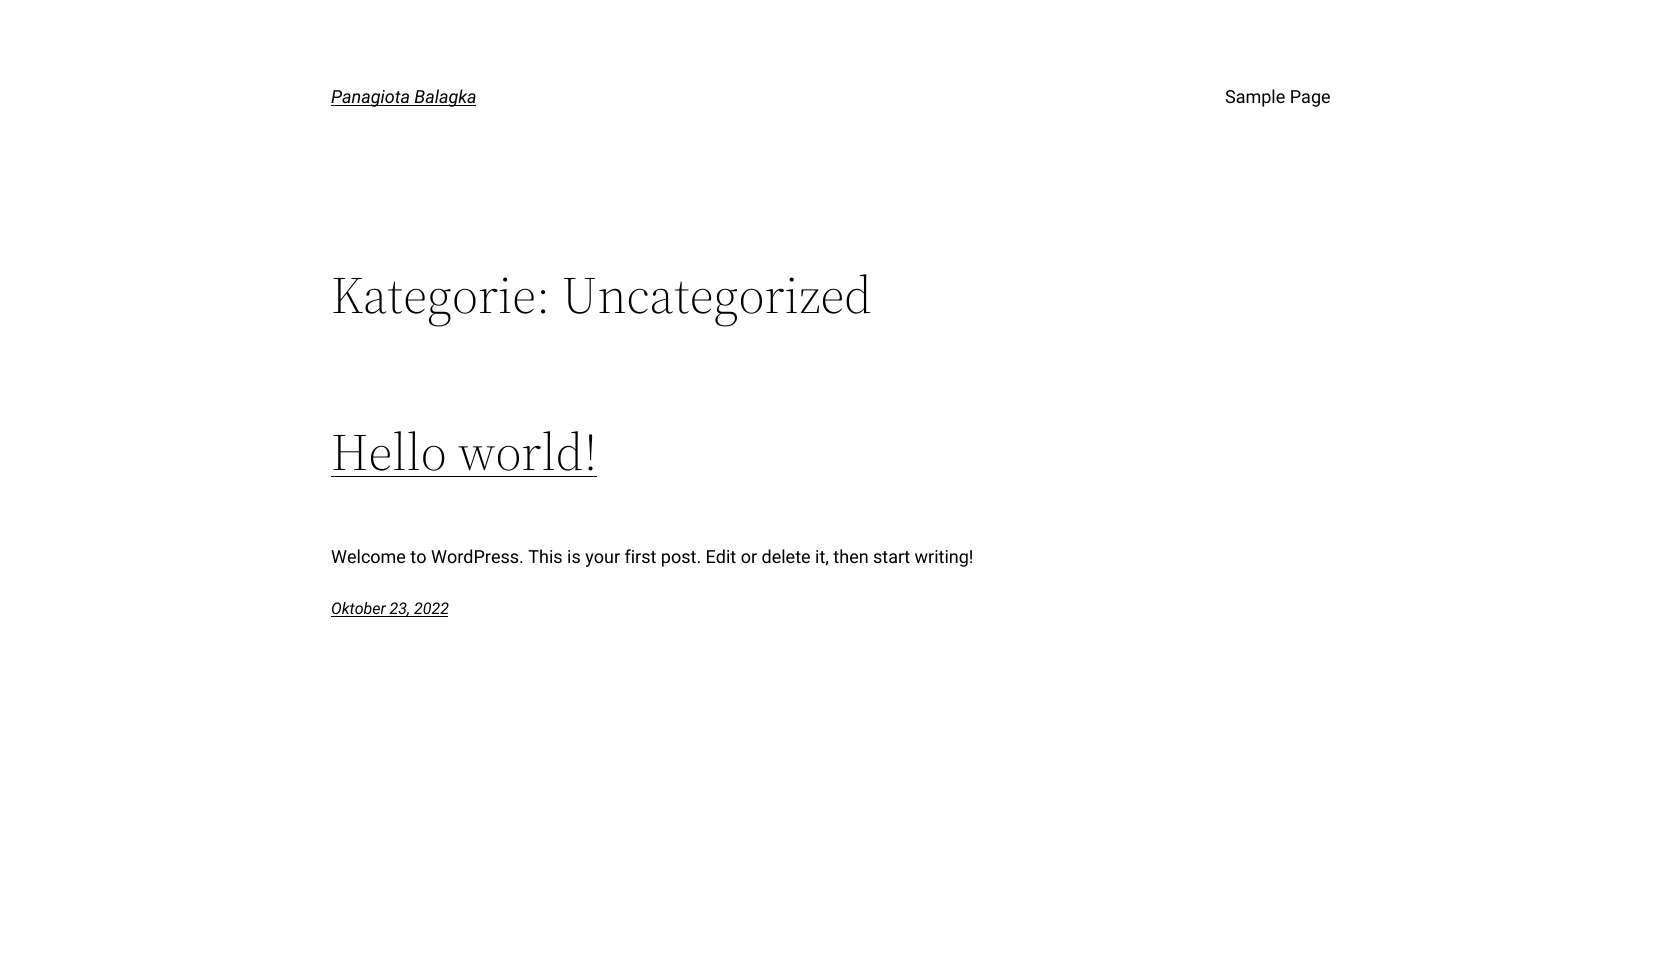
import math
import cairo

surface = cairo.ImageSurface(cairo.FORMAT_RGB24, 1661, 960)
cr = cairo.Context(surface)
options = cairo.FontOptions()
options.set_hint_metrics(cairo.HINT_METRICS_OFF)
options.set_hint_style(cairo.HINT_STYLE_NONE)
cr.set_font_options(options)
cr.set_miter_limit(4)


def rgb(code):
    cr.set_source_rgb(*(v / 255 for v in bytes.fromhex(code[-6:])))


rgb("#ffffff")
cr.paint()
for x, y, w, h, color in [
    (331, 105, 145, 1, "#000000"),
    (331, 476, 266, 1, "#000000"),
    (331, 616, 117, 1, "#000000"),
]:
    rgb(color)
    cr.rectangle(x, y, w, h)
    cr.fill()
cr.select_font_face("Roboto", cairo.FONT_SLANT_ITALIC)
cr.set_font_size(18)
cr.move_to(331, 103)
cr.show_text("Panagiota Balagka")
cr.select_font_face("Roboto")
cr.move_to(1225, 103)
cr.show_text("Sample Page")
cr.select_font_face("Source Serif 4 Light")
cr.set_font_size(52)
cr.move_to(331, 313)
cr.show_text("Kategorie: Uncategorized")
cr.move_to(331, 470)
cr.show_text("Hello world!")
cr.select_font_face("Roboto")
cr.set_font_size(18)
cr.move_to(331, 563)
cr.show_text("Welcome to WordPress. This is your first post. Edit or delete it, then start writing!")
cr.select_font_face("Roboto", cairo.FONT_SLANT_ITALIC)
cr.set_font_size(16)
cr.move_to(331, 614)
cr.show_text("Oktober 23, 2022")
surface.write_to_png("page.png")
